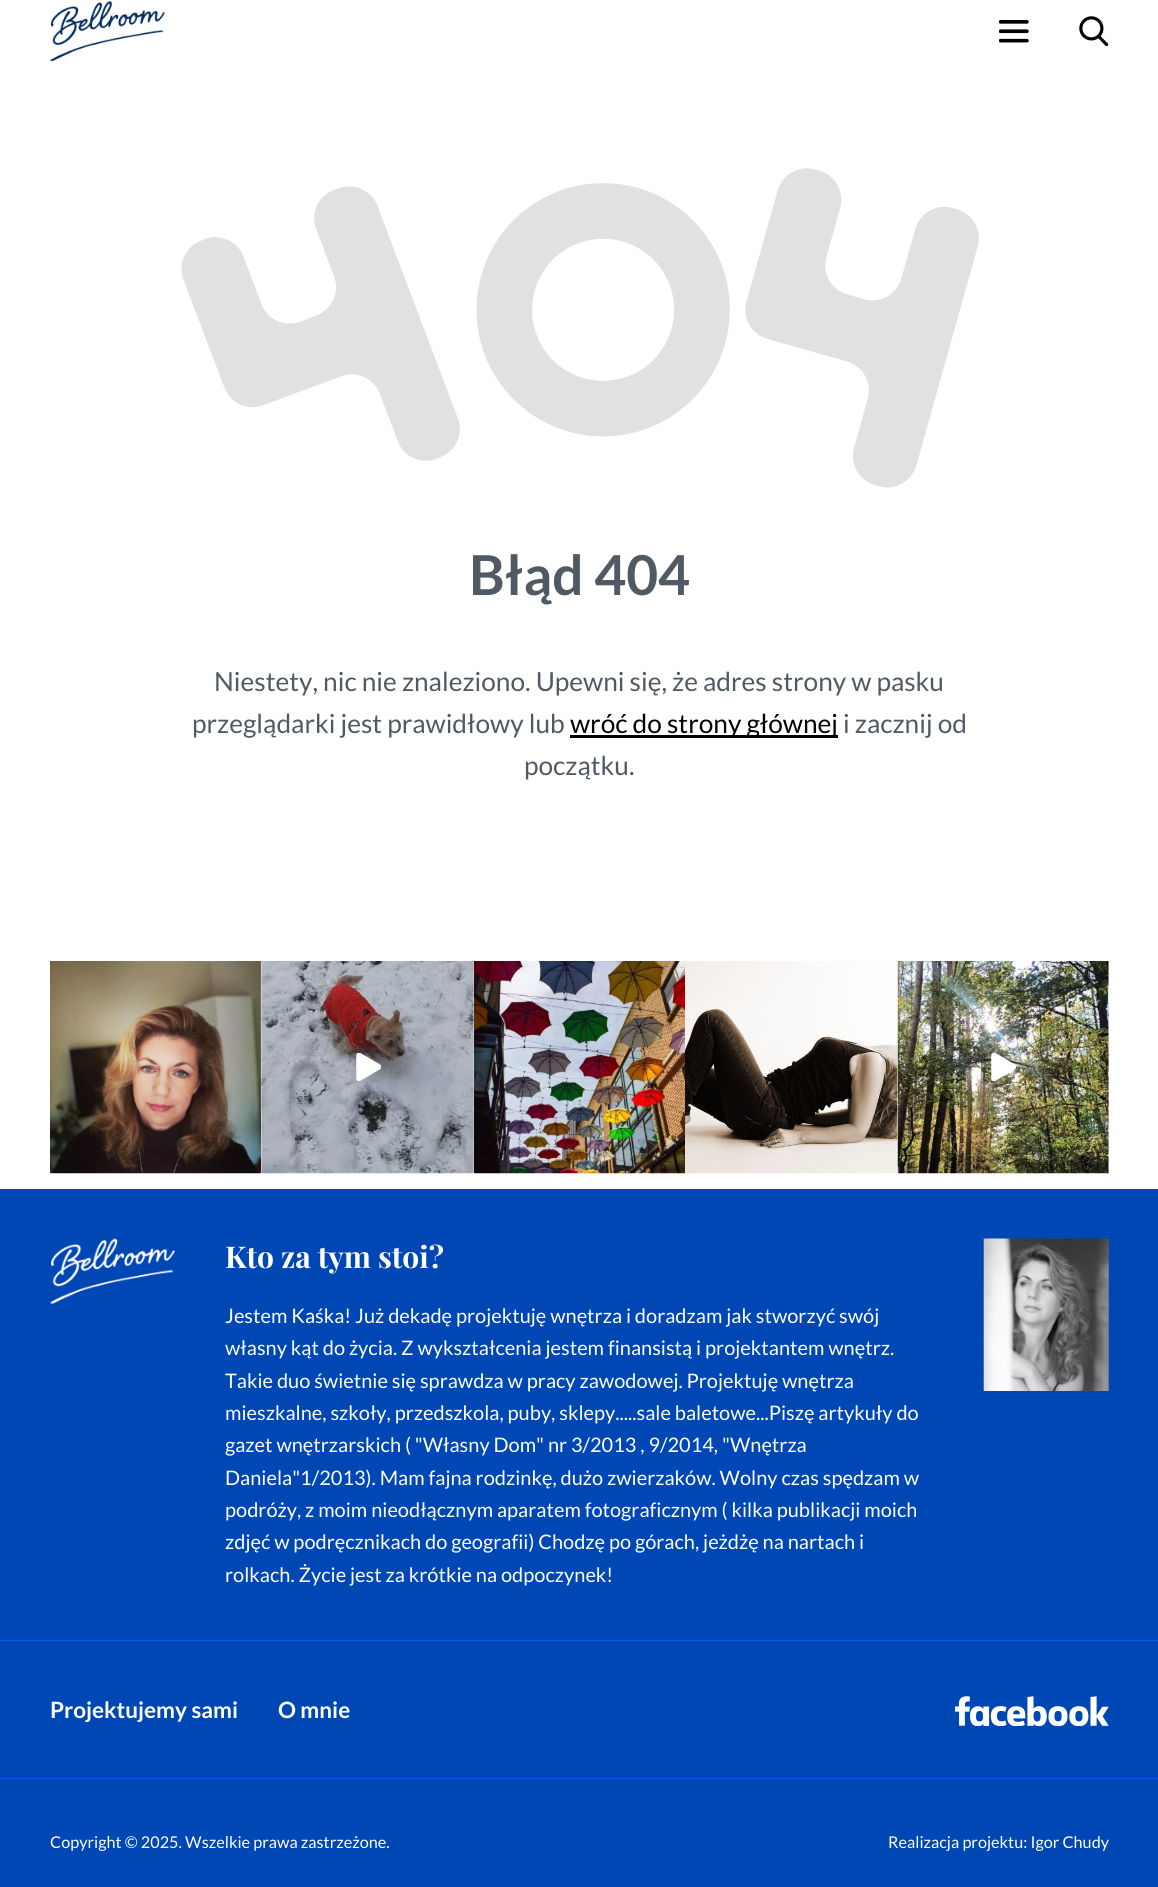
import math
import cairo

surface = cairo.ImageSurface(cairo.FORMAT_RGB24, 1158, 1887)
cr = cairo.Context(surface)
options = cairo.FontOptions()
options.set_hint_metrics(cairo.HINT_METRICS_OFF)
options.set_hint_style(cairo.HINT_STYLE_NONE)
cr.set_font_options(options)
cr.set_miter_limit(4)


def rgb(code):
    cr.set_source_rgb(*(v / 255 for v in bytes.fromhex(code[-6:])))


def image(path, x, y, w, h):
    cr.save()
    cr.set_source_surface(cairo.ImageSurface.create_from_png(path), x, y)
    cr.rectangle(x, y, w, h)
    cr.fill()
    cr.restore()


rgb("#ffffff")
cr.paint()
image("img/1.png", 50, 1, 115, 60)
image("img/2.png", 999, 20, 30, 23)
image("img/3.png", 1079, 16, 30, 30)
image("img/4.png", 181, 168, 798, 320)
rgb("#000000")
cr.rectangle(570, 735, 268, 3)
cr.fill()
image("img/5.png", 50, 961, 212, 213)
image("img/6.png", 261, 961, 213, 213)
image("img/7.png", 356, 1053, 25, 28)
image("img/8.png", 473, 961, 212, 213)
image("img/9.png", 685, 961, 213, 213)
image("img/10.png", 897, 961, 212, 213)
image("img/11.png", 991, 1053, 25, 28)
rgb("#0047b6")
cr.rectangle(0, 1189, 1158, 698)
cr.fill()
rgb("#005be9")
cr.rectangle(0, 1640, 1158, 1)
cr.fill()
image("img/12.png", 50, 1238, 125, 66)
image("img/13.png", 983, 1238, 126, 153)
cr.rectangle(0, 1778, 1158, 1)
cr.fill()
image("img/14.png", 955, 1696, 154, 30)
cr.select_font_face("Lato", cairo.FONT_SLANT_NORMAL, cairo.FONT_WEIGHT_BOLD)
cr.set_font_size(55)
rgb("#4f5a65")
cr.move_to(469, 595)
cr.show_text("Błąd 404")
cr.select_font_face("Lato")
cr.set_font_size(26.25)
cr.move_to(214, 691)
cr.show_text("Niestety, nic nie znaleziono. Upewni się, że adres strony w pasku")
cr.move_to(192, 733)
cr.show_text("przeglądarki jest prawidłowy lub")
rgb("#000000")
cr.move_to(570, 733)
cr.show_text("wróć do strony głównej")
rgb("#4f5a65")
cr.move_to(843, 733)
cr.show_text("i zacznij od")
cr.move_to(524, 775)
cr.show_text("początku.")
cr.select_font_face("Playfair Display", cairo.FONT_SLANT_NORMAL, cairo.FONT_WEIGHT_BOLD)
cr.set_font_size(30)
rgb("#ffffff")
cr.move_to(225, 1268)
cr.show_text("Kto za tym stoi?")
cr.select_font_face("Lato")
cr.set_font_size(20)
for x, y, s in [
    (225, 1323, "Jestem Kaśka! Już dekadę projektuję wnętrza i doradzam jak stworzyć swój"),
    (225, 1355, "własny kąt do życia. Z wykształcenia jestem finansistą i projektantem wnętrz."),
    (225, 1388, "Takie duo świetnie się sprawdza w pracy zawodowej. Projektuję wnętrza"),
    (225, 1420, "mieszkalne, szkoły, przedszkola, puby, sklepy.....sale baletowe...Piszę artykuły do"),
    (225, 1452, "gazet wnętrzarskich ( \"Własny Dom\" nr 3/2013 , 9/2014, \"Wnętrza"),
    (225, 1485, "Daniela\"1/2013). Mam fajna rodzinkę, dużo zwierzaków. Wolny czas spędzam w"),
    (225, 1517, "podróży, z moim nieodłącznym aparatem fotograficznym ( kilka publikacji moich"),
    (225, 1549, "zdjęć w podręcznikach do geografii) Chodzę po górach, jeżdżę na nartach i"),
    (225, 1582, "rolkach. Życie jest za krótkie na odpoczynek!"),
]:
    cr.move_to(x, y)
    cr.show_text(s)
cr.select_font_face("Lato", cairo.FONT_SLANT_NORMAL, cairo.FONT_WEIGHT_BOLD)
cr.set_font_size(22.5)
cr.move_to(50, 1718)
cr.show_text("Projektujemy sami")
cr.move_to(278, 1718)
cr.show_text("O mnie")
cr.select_font_face("Lato")
cr.set_font_size(16.25)
cr.move_to(50, 1848)
cr.show_text("Copyright © 2025. Wszelkie prawa zastrzeżone.")
cr.move_to(888, 1848)
cr.show_text("Realizacja projektu: Igor Chudy")
surface.write_to_png("page.png")
